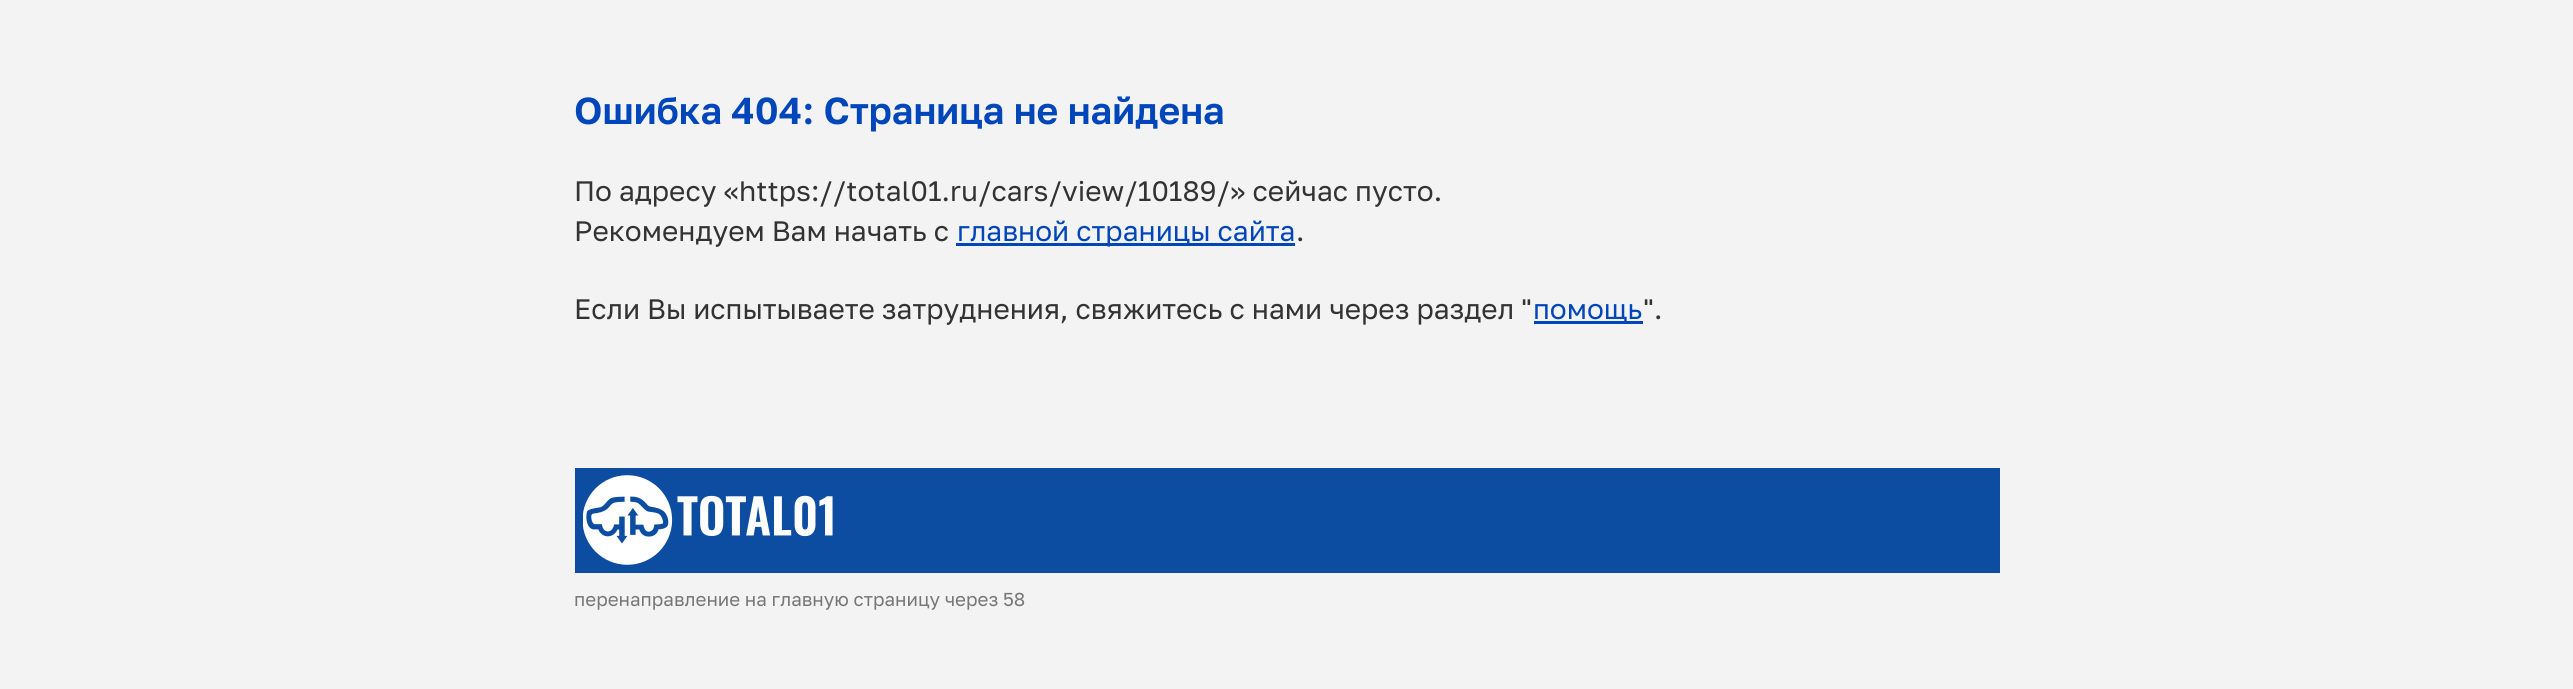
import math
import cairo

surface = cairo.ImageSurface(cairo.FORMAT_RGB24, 2573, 689)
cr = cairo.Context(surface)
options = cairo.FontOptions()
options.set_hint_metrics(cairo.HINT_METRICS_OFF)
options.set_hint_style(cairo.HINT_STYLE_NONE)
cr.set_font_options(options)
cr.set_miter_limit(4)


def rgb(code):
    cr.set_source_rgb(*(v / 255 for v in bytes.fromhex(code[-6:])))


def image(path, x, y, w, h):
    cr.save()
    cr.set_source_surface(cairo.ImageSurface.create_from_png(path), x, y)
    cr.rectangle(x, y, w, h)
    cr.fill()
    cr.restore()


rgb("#f3f3f3")
cr.paint()
for x, y, w, h, color in [
    (956, 243, 339, 3, "#0046bb"),
    (1534, 321, 109, 3, "#0046bb"),
    (575, 468, 1425, 105, "#0c4da2"),
]:
    rgb(color)
    cr.rectangle(x, y, w, h)
    cr.fill()
image("img/1.png", 583, 475, 250, 90)
cr.select_font_face("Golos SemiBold")
cr.set_font_size(37.5)
rgb("#0046bb")
cr.move_to(574, 124)
cr.show_text("Ошибка 404: Страница не найдена")
cr.select_font_face("Golos")
cr.set_font_size(28.1)
rgb("#333333")
cr.move_to(574, 201)
cr.show_text("По адресу «https://total01.ru/cars/view/10189/» сейчас пусто.")
cr.move_to(574, 241)
cr.show_text("Рекомендуем Вам начать с")
rgb("#0046bb")
cr.move_to(957, 241)
cr.show_text("главной страницы сайта")
rgb("#333333")
cr.move_to(1296, 241)
cr.show_text(".")
cr.move_to(574, 319)
cr.show_text("Если Вы испытываете затруднения, свяжитесь с нами через раздел \"")
rgb("#0046bb")
cr.move_to(1533, 319)
cr.show_text("помощь")
rgb("#333333")
cr.move_to(1643, 319)
cr.show_text("\".")
cr.set_font_size(18.75)
rgb("#777777")
cr.move_to(574, 606)
cr.show_text("перенаправление на главную страницу через 58")
surface.write_to_png("page.png")
